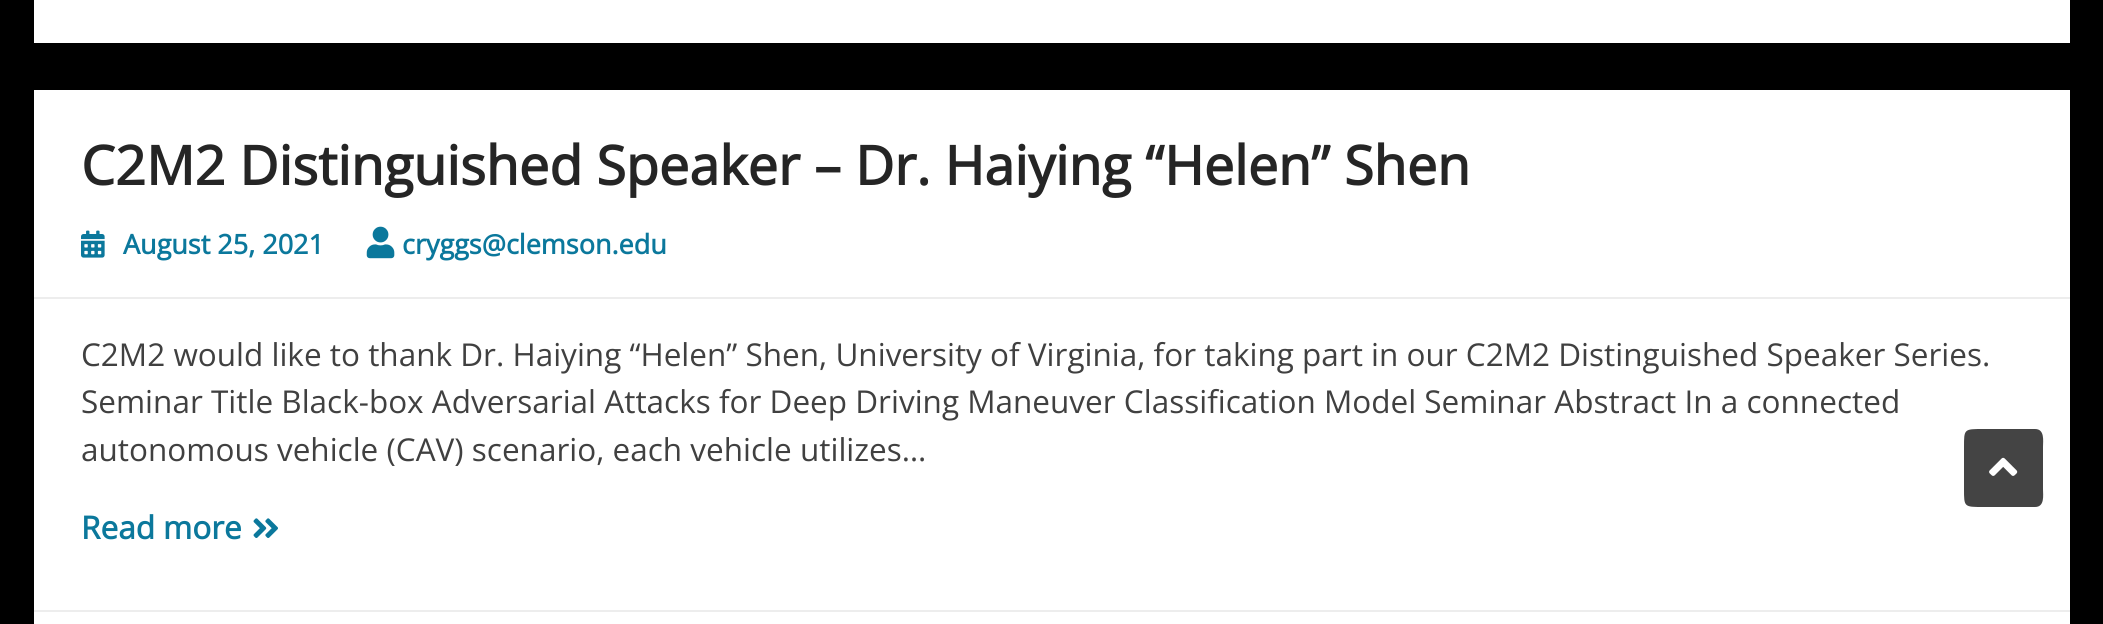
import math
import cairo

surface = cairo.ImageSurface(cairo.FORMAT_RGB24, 2103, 624)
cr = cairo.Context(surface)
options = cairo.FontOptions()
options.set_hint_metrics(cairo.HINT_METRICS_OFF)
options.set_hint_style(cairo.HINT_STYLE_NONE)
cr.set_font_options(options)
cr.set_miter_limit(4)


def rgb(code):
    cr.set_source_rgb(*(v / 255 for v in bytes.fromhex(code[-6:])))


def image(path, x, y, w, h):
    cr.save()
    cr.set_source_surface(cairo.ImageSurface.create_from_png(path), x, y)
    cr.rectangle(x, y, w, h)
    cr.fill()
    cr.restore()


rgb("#000000")
cr.paint()
for x, y, w, h, color in [
    (34, 0, 2036, 43, "#ffffff"),
    (34, 90, 2036, 534, "#ffffff"),
    (34, 297, 2036, 2, "#ededed"),
]:
    rgb(color)
    cr.rectangle(x, y, w, h)
    cr.fill()
image("img/1.png", 81, 230, 24, 28)
image("img/2.png", 366, 226, 29, 33)
image("img/3.png", 253, 518, 25, 20)
cr.rectangle(34, 610, 2036, 2)
cr.fill()
rgb("#444444")
cr.new_path()
cr.move_to(2035, 429)
cr.curve_to(2045, 429, 2043, 441, 2043, 447)
cr.line_to(2043, 489)
cr.curve_to(2043, 495, 2045, 507, 2035, 507)
cr.line_to(1983, 507)
cr.curve_to(1964, 507, 1964, 507, 1964, 489)
cr.line_to(1964, 447)
cr.curve_to(1964, 429, 1964, 429, 1983, 429)
cr.close_path()
cr.fill()
image("img/4.png", 1989, 457, 29, 19)
cr.select_font_face("Open Sans", cairo.FONT_SLANT_NORMAL, cairo.FONT_WEIGHT_BOLD)
cr.set_font_size(54)
rgb("#252525")
cr.move_to(81, 185)
cr.show_text("C2M2 Distinguished Speaker – Dr. Haiying “Helen” Shen")
cr.set_font_size(27)
rgb("#0b789c")
cr.move_to(123, 254)
cr.show_text("August 25, 2021")
cr.move_to(402, 254)
cr.show_text("cryggs@clemson.edu")
cr.select_font_face("Open Sans")
cr.set_font_size(31.5)
rgb("#404040")
for x, y, s in [
    (81, 366, "C2M2 would like to thank Dr. Haiying “Helen” Shen, University of Virginia, for taking part in our C2M2 Distinguished Speaker Series."),
    (81, 413, "Seminar Title Black-box Adversarial Attacks for Deep Driving Maneuver Classification Model Seminar Abstract In a connected"),
    (81, 461, "autonomous vehicle (CAV) scenario, each vehicle utilizes…"),
]:
    cr.move_to(x, y)
    cr.show_text(s)
cr.select_font_face("Open Sans", cairo.FONT_SLANT_NORMAL, cairo.FONT_WEIGHT_BOLD)
rgb("#0b789c")
cr.move_to(81, 539)
cr.show_text("Read more")
surface.write_to_png("page.png")
